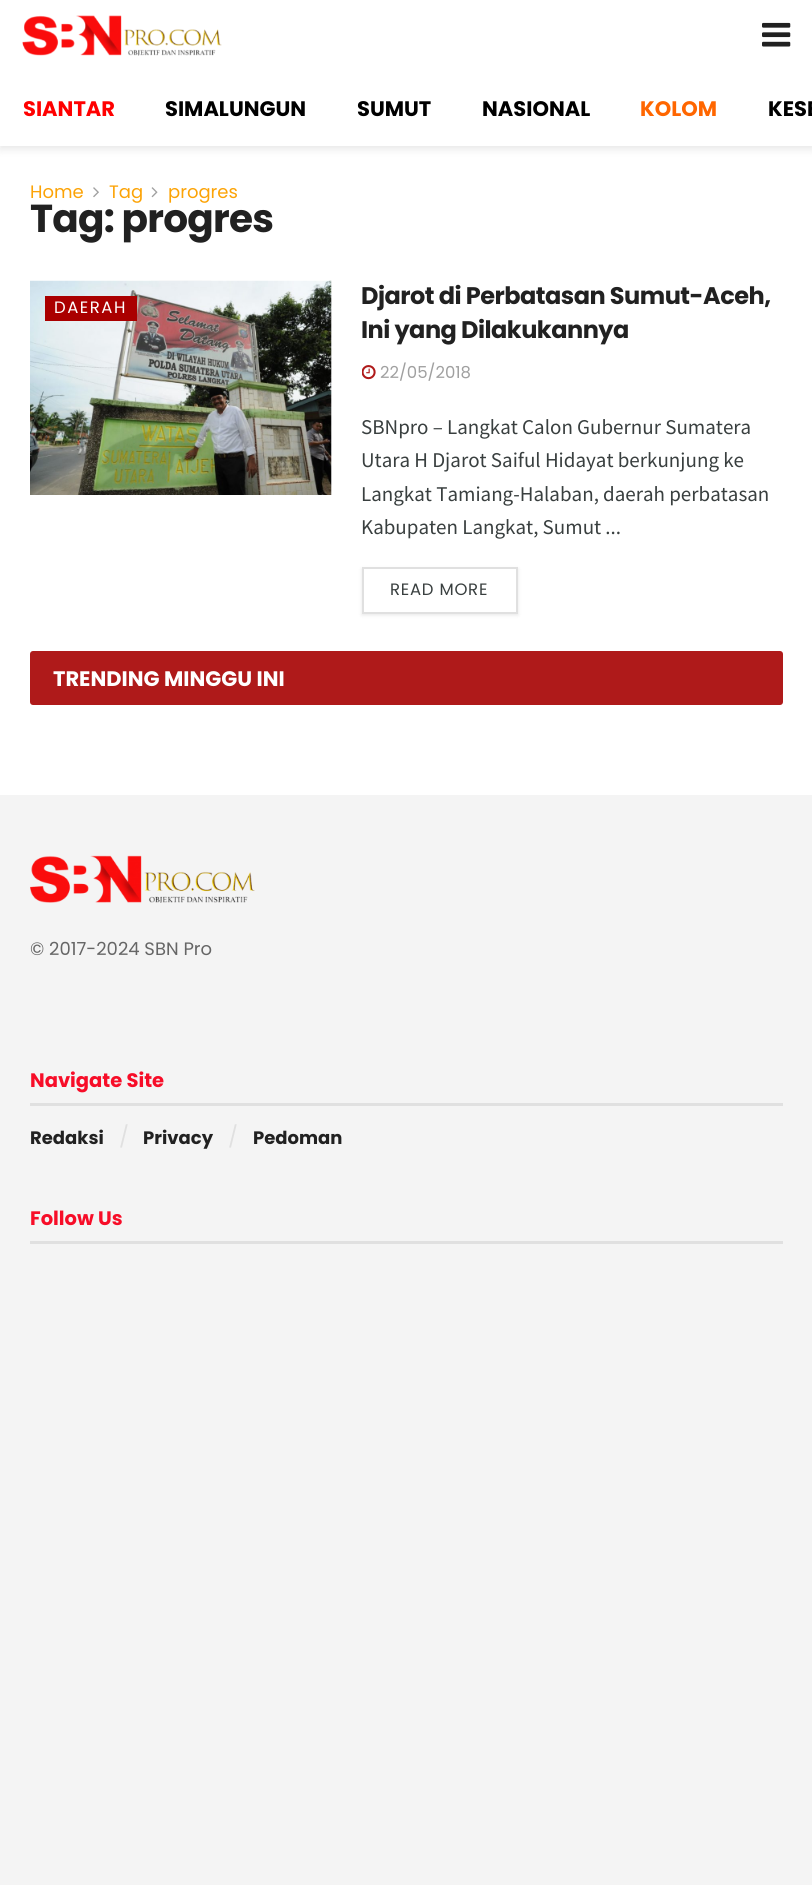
import math
import cairo

surface = cairo.ImageSurface(cairo.FORMAT_RGB24, 812, 1885)
cr = cairo.Context(surface)
options = cairo.FontOptions()
options.set_hint_metrics(cairo.HINT_METRICS_OFF)
options.set_hint_style(cairo.HINT_STYLE_NONE)
cr.set_font_options(options)
cr.set_miter_limit(4)


def rgb(code):
    cr.set_source_rgb(*(v / 255 for v in bytes.fromhex(code[-6:])))


def tracked(x, y, s, letter, word):
    cr.move_to(x, y)
    for ch in s:
        cr.show_text(ch)
        cr.rel_move_to(letter + word * (ch == ' '), 0)


def rrect(x, y, w, h, r):
    cr.new_sub_path()
    for i, (u, v) in enumerate([(x + w - r, y + h - r), (x + r, y + h - r), (x + r, y + r), (x + w - r, y + r)]):
        cr.arc(u, v, r, i * math.pi / 2, (i + 1) * math.pi / 2)
    cr.close_path()


def soft_shadow(x, y, w, h, r, blur, alpha):
    cr.push_group_with_content(cairo.CONTENT_ALPHA)
    cr.set_operator(cairo.OPERATOR_SOURCE)
    for i in range(15, -16, -2):
        e = blur * i / 6
        if min(w, h) + 2 * e > 0:
            cr.set_source_rgba(0, 0, 0, alpha * math.erfc((i - 1) / 8.5) / 2)
            rrect(x - e, y - e, w + 2 * e, h + 2 * e, max(0, min(r + e + blur * .6, min(w, h) / 2 + e)))
            cr.fill()
    cr.mask(cr.pop_group())


def image(path, x, y, w, h):
    cr.save()
    cr.set_source_surface(cairo.ImageSurface.create_from_png(path), x, y)
    cr.rectangle(x, y, w, h)
    cr.fill()
    cr.restore()


rgb("#f4f4f4")
cr.paint()
rgb("#ffffff")
cr.rectangle(0, 146, 812, 649)
cr.fill()
rgb("#000000")
soft_shadow(0, 3, 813, 146, 0, 4.5, 0.1)
rgb("#ffffff")
cr.rectangle(0, 0, 812, 146)
cr.fill()
image("img/1.png", 22, 15, 200, 41)
image("img/2.png", 762, 22, 29, 25)
image("img/3.png", 93, 187, 6, 11)
image("img/4.png", 151, 187, 7, 11)
rgb("#f7f7f7")
cr.rectangle(331, 281, 1, 214)
cr.fill()
image("img/6.png", 151, 280, 60, 1)
image("img/5.png", 30, 280, 302, 215)
rgb("#aa0000")
cr.rectangle(45, 296, 92, 25)
cr.fill()
image("img/7.png", 362, 365, 14, 15)
cr.save()
cr.set_fill_rule(cairo.FILL_RULE_EVEN_ODD)
cr.new_path()
cr.move_to(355, 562)
cr.line_to(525, 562)
cr.line_to(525, 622)
cr.line_to(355, 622)
cr.close_path()
cr.move_to(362, 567)
cr.line_to(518, 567)
cr.line_to(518, 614)
cr.line_to(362, 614)
cr.close_path()
cr.clip()
rgb("#000000")
soft_shadow(362, 569, 156, 46, 0, 2, 0.1)
cr.restore()
cr.rectangle(363, 568, 154, 45)
rgb("#e0e0e0")
cr.stroke()
rgb("#af1a1a")
rrect(30, 651, 753, 54, 3)
cr.fill()
image("img/8.png", 30, 855, 225, 48)
rgb("#e0e0e0")
cr.rectangle(30, 1103, 753, 3)
cr.fill()
cr.rectangle(30, 1241, 753, 3)
cr.fill()
cr.select_font_face("Poppins", cairo.FONT_SLANT_NORMAL, cairo.FONT_WEIGHT_BOLD)
cr.set_font_size(21)
rgb("#ff0000")
cr.move_to(23, 116)
cr.show_text("SIANTAR")
rgb("#000000")
for x, y, s in [
    (165, 116, "SIMALUNGUN"),
    (357, 116, "SUMUT"),
    (482, 116, "NASIONAL"),
]:
    cr.move_to(x, y)
    cr.show_text(s)
rgb("#ff6600")
cr.move_to(640, 116)
cr.show_text("KOLOM")
rgb("#000000")
cr.move_to(768, 116)
cr.show_text("KESE")
cr.select_font_face("Poppins")
cr.set_font_size(18)
rgb("#fca306")
for x, y, s in [
    (30, 198, "Home"),
    (109, 198, "Tag"),
    (168, 198, "progres"),
]:
    cr.move_to(x, y)
    cr.show_text(s)
cr.select_font_face("Poppins", cairo.FONT_SLANT_NORMAL, cairo.FONT_WEIGHT_BOLD)
cr.set_font_size(39)
rgb("#212121")
tracked(30, 232, "Tag: progres", -0.75, 0)
cr.select_font_face("Poppins")
cr.set_font_size(16.5)
rgb("#ffffff")
tracked(54, 313, "DAERAH", 1.5, 0)
cr.select_font_face("Poppins", cairo.FONT_SLANT_NORMAL, cairo.FONT_WEIGHT_BOLD)
cr.set_font_size(24)
rgb("#212121")
tracked(361, 304, "Djarot di Perbatasan Sumut-Aceh,", -0.5, 0)
tracked(361, 338, "Ini yang Dilakukannya", -0.5, 0)
cr.select_font_face("Poppins")
cr.set_font_size(16.5)
rgb("#a0a0a0")
cr.move_to(380, 378)
cr.show_text("22/05/2018")
cr.select_font_face("Source Sans Pro")
cr.set_font_size(21)
rgb("#393f3f")
for x, y, s in [
    (361, 434, "SBNpro – Langkat Calon Gubernur Sumatera"),
    (361, 467, "Utara H Djarot Saiful Hidayat berkunjung ke"),
    (361, 501, "Langkat Tamiang-Halaban, daerah perbatasan"),
    (361, 534, "Kabupaten Langkat, Sumut ..."),
]:
    cr.move_to(x, y)
    cr.show_text(s)
cr.select_font_face("Poppins")
cr.set_font_size(16.5)
tracked(390, 595, "READ MORE", 0.75, 0)
cr.select_font_face("Poppins", cairo.FONT_SLANT_NORMAL, cairo.FONT_WEIGHT_BOLD)
cr.set_font_size(21)
rgb("#ffffff")
cr.move_to(53, 686)
cr.show_text("TRENDING MINGGU INI")
cr.select_font_face("Poppins")
cr.set_font_size(18)
rgb("#666666")
cr.move_to(30, 955)
cr.show_text("© 2017-2024 SBN Pro")
cr.select_font_face("Poppins", cairo.FONT_SLANT_NORMAL, cairo.FONT_WEIGHT_BOLD)
cr.set_font_size(19.5)
rgb("#f70d28")
cr.move_to(30, 1087)
cr.show_text("Navigate Site")
cr.set_font_size(18)
rgb("#212121")
cr.move_to(30, 1144)
cr.show_text("Redaksi")
cr.select_font_face("Poppins")
cr.set_font_size(21)
rgb("#e0e0e0")
cr.move_to(119, 1144)
cr.show_text("/")
cr.select_font_face("Poppins", cairo.FONT_SLANT_NORMAL, cairo.FONT_WEIGHT_BOLD)
cr.set_font_size(18)
rgb("#212121")
cr.move_to(143, 1144)
cr.show_text("Privacy")
cr.select_font_face("Poppins")
cr.set_font_size(21)
rgb("#e0e0e0")
cr.move_to(228, 1144)
cr.show_text("/")
cr.select_font_face("Poppins", cairo.FONT_SLANT_NORMAL, cairo.FONT_WEIGHT_BOLD)
cr.set_font_size(18)
rgb("#212121")
cr.move_to(253, 1144)
cr.show_text("Pedoman")
cr.set_font_size(19.5)
rgb("#f70d28")
cr.move_to(30, 1225)
cr.show_text("Follow Us")
surface.write_to_png("page.png")
